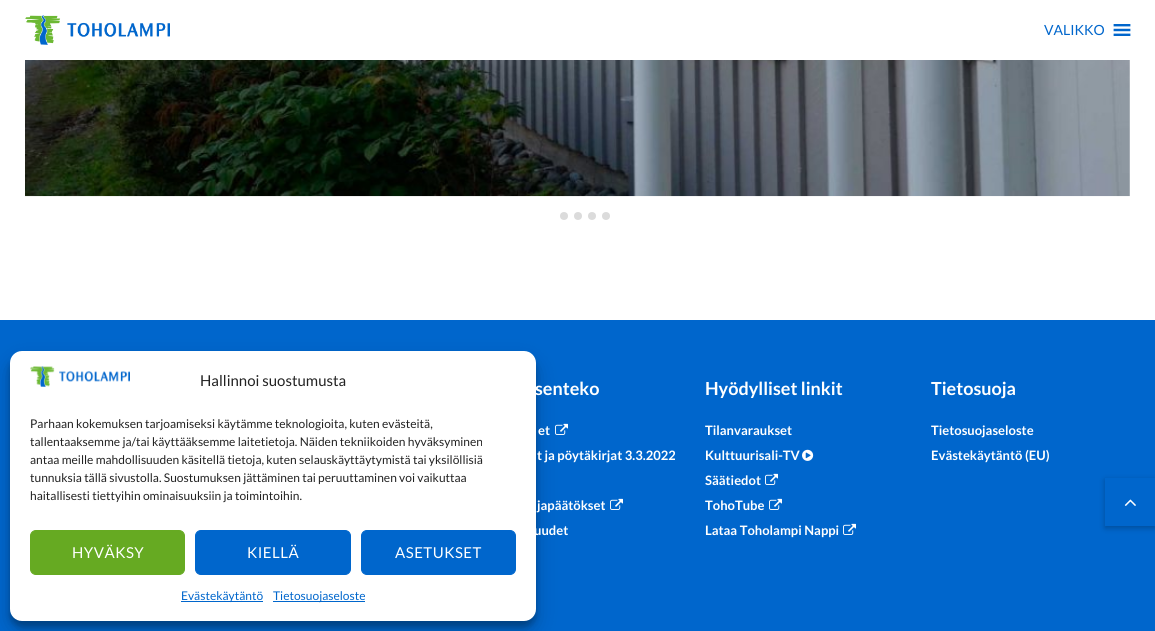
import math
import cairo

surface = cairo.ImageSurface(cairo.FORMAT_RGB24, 1155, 631)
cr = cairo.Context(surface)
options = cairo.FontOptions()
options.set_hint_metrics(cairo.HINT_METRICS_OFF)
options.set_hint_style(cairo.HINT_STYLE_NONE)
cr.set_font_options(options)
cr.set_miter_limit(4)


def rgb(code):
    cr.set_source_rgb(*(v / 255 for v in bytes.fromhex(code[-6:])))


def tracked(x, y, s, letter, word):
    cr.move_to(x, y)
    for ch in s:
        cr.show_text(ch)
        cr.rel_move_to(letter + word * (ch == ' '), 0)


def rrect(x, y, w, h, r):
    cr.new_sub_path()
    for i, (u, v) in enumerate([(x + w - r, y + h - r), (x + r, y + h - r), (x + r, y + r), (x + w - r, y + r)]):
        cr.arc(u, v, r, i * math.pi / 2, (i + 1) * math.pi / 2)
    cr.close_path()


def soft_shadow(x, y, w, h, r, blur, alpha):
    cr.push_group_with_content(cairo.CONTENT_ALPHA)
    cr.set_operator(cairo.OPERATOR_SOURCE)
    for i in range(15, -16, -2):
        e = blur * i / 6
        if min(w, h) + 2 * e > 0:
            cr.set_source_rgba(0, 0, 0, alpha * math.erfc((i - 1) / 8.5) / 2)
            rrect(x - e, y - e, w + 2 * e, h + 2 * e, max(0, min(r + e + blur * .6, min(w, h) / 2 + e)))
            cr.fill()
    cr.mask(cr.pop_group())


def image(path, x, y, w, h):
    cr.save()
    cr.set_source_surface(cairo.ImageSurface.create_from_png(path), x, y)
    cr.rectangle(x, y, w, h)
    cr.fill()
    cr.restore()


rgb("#ffffff")
cr.paint()
rgb("#0066cc")
cr.rectangle(0, 320, 1155, 311)
cr.fill()
rgb("#000000")
soft_shadow(10, 357, 526, 270, 12, 3, 0.23)
image("img/5.png", 555, 423, 13, 12)
soft_shadow(10, 361, 526, 270, 12, 10, 0.19)
rgb("#ffffff")
rrect(10, 351, 526, 270, 12)
cr.fill()
image("img/1.png", 30, 366, 100, 21)
rgb("#66aa22")
rrect(30.5, 530.5, 154, 44, 5.5)
cr.fill_preserve()
cr.set_line_width(1)
cr.stroke()
rgb("#0066cc")
rrect(195.5, 530.5, 155, 44, 5.5)
cr.fill_preserve()
cr.stroke()
rrect(361.5, 530.5, 154, 44, 5.5)
cr.fill_preserve()
cr.stroke()
cr.rectangle(181, 601, 82, 1)
cr.fill()
cr.rectangle(273, 601, 92, 1)
cr.fill()
image("img/2.png", 25, 15, 145, 30)
image("img/3.png", 1113, 24, 18, 12)
image("img/4.png", 25, 60, 1105, 137)
rgb("#dbdbdb")
cr.arc(564, 216, 4, 0, 2 * math.pi)
cr.fill()
cr.arc(578, 216, 4, 0, 2 * math.pi)
cr.fill()
cr.arc(592, 216, 4, 0, 2 * math.pi)
cr.fill()
cr.arc(606, 216, 4, 0, 2 * math.pi)
cr.fill()
image("img/5.png", 610, 498, 13, 12)
image("img/6.png", 802, 449, 12, 12)
image("img/5.png", 765, 473, 13, 12)
image("img/5.png", 769, 498, 13, 12)
image("img/5.png", 843, 523, 13, 12)
cr.save()
cr.set_fill_rule(cairo.FILL_RULE_EVEN_ODD)
cr.new_path()
cr.move_to(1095, 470)
cr.line_to(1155, 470)
cr.line_to(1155, 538)
cr.line_to(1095, 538)
cr.close_path()
cr.move_to(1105, 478)
cr.line_to(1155, 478)
cr.line_to(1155, 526)
cr.line_to(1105, 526)
cr.close_path()
cr.clip()
rgb("#000000")
soft_shadow(1105, 480, 50, 48, 0, 3, 0.25)
cr.restore()
image("img/7.png", 1124, 499, 12, 7)
cr.select_font_face("Lato")
cr.set_font_size(15)
rgb("#222222")
cr.move_to(200, 386)
cr.show_text("Hallinnoi suostumusta")
cr.set_font_size(12)
for x, y, s in [
    (30, 428, "Parhaan kokemuksen tarjoamiseksi käytämme teknologioita, kuten evästeitä,"),
    (30, 446, "tallentaaksemme ja/tai käyttääksemme laitetietoja. Näiden tekniikoiden hyväksyminen"),
    (30, 464, "antaa meille mahdollisuuden käsitellä tietoja, kuten selauskäyttäytymistä tai yksilöllisiä"),
    (30, 482, "tunnuksia tällä sivustolla. Suostumuksen jättäminen tai peruuttaminen voi vaikuttaa"),
    (30, 500, "haitallisesti tiettyihin ominaisuuksiin ja toimintoihin."),
]:
    cr.move_to(x, y)
    cr.show_text(s)
cr.set_font_size(15)
rgb("#ffffff")
for x, y, s in [
    (72, 558, "HYVÄKSY"),
    (247, 558, "KIELLÄ"),
    (395, 558, "ASETUKSET"),
]:
    tracked(x, y, s, 0.5, 0)
cr.set_font_size(12)
rgb("#0066cc")
cr.move_to(181, 600)
cr.show_text("Evästekäytäntö")
cr.move_to(273, 600)
cr.show_text("Tietosuojaseloste")
cr.set_font_size(14)
cr.move_to(1044, 35)
cr.show_text("VALIKKO")
cr.select_font_face("Lato", cairo.FONT_SLANT_NORMAL, cairo.FONT_WEIGHT_BOLD)
cr.set_font_size(18)
rgb("#ffffff")
cr.move_to(535, 395)
cr.show_text("senteko")
cr.set_font_size(13)
for x, y, s in [
    (538, 435, "et"),
    (537, 460, "t ja pöytäkirjat 3.3.2022"),
    (537, 510, "japäätökset"),
    (534, 535, "uudet"),
]:
    cr.move_to(x, y)
    cr.show_text(s)
cr.set_font_size(18)
cr.move_to(705, 395)
cr.show_text("Hyödylliset linkit")
cr.set_font_size(13)
for x, y, s in [
    (705, 435, "Tilanvaraukset"),
    (705, 460, "Kulttuurisali-TV"),
    (705, 485, "Säätiedot"),
    (705, 510, "TohoTube"),
    (705, 535, "Lataa Toholampi Nappi"),
]:
    cr.move_to(x, y)
    cr.show_text(s)
cr.set_font_size(18)
cr.move_to(931, 395)
cr.show_text("Tietosuoja")
cr.set_font_size(13)
cr.move_to(931, 435)
cr.show_text("Tietosuojaseloste")
cr.move_to(931, 460)
cr.show_text("Evästekäytäntö (EU)")
surface.write_to_png("page.png")
